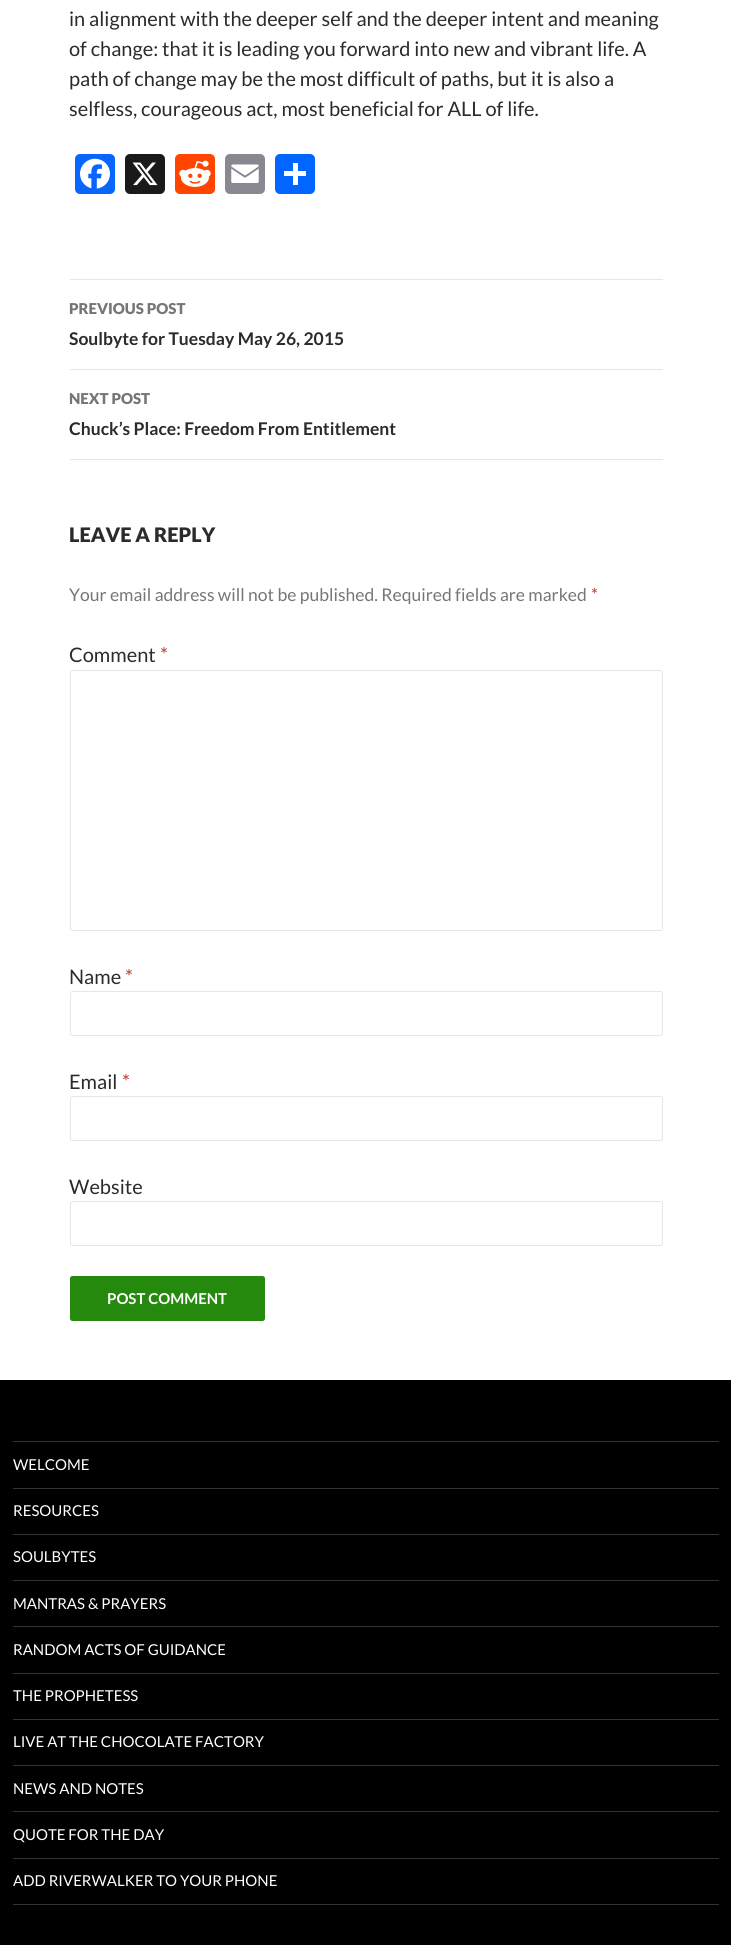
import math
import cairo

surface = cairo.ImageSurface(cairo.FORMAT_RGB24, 731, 1945)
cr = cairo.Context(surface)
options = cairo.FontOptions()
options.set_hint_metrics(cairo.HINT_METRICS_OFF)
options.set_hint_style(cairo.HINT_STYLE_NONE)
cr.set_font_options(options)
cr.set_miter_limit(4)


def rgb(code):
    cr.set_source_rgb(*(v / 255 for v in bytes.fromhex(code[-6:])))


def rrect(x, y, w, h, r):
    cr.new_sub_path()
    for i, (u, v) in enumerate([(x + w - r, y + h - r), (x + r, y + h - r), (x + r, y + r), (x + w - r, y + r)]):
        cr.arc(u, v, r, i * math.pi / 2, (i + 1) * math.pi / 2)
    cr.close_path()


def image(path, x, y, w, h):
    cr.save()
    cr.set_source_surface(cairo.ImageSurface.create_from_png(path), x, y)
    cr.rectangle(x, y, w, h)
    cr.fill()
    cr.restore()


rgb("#ffffff")
cr.paint()
rgb("#0866ff")
rrect(75, 154, 40, 40, 5)
cr.fill()
image("img/1.png", 80, 158, 30, 31)
rgb("#1a1a1a")
rrect(125, 154, 40, 40, 5)
cr.fill()
image("img/2.png", 132, 162, 26, 24)
rgb("#ff4500")
rrect(175, 154, 40, 40, 5)
cr.fill()
image("img/3.png", 179, 160, 32, 27)
rgb("#888990")
rrect(225, 154, 40, 40, 5)
cr.fill()
image("img/4.png", 231, 164, 28, 19)
rgb("#0166ff")
rrect(275, 154, 40, 40, 5)
cr.fill()
for x, y, w, h, color in [
    (293, 163, 5, 22, "#ffffff"),
    (284, 171, 22, 5, "#ffffff"),
    (70, 279, 593, 1, "#e6e6e6"),
    (70, 369, 593, 1, "#e6e6e6"),
    (70, 459, 593, 1, "#e6e6e6"),
]:
    rgb(color)
    cr.rectangle(x, y, w, h)
    cr.fill()
rrect(70.5, 670.5, 592, 260, 2)
cr.set_line_width(1)
cr.stroke()
rrect(70.5, 991.5, 592, 44, 2)
cr.stroke()
rrect(70.5, 1096.5, 592, 44, 2)
cr.stroke()
rrect(70.5, 1201.5, 592, 44, 2)
cr.stroke()
rgb("#24890d")
rrect(70, 1276, 195, 45, 2.5)
cr.fill()
for x, y, w, h, color in [
    (0, 1380, 731, 565, "#000000"),
    (13, 1904, 706, 1, "#333333"),
    (13, 1441, 706, 1, "#333333"),
    (13, 1488, 706, 1, "#333333"),
    (13, 1534, 706, 1, "#333333"),
    (13, 1580, 706, 1, "#333333"),
    (13, 1626, 706, 1, "#333333"),
    (13, 1673, 706, 1, "#333333"),
    (13, 1719, 706, 1, "#333333"),
    (13, 1765, 706, 1, "#333333"),
    (13, 1811, 706, 1, "#333333"),
    (13, 1858, 706, 1, "#333333"),
]:
    rgb(color)
    cr.rectangle(x, y, w, h)
    cr.fill()
cr.select_font_face("Lato")
cr.set_font_size(20)
rgb("#2b2b2b")
for x, y, s in [
    (69, 26, "in alignment with the deeper self and the deeper intent and meaning"),
    (69, 56, "of change: that it is leading you forward into new and vibrant life. A"),
    (69, 86, "path of change may be the most difficult of paths, but it is also a"),
    (69, 116, "selfless, courageous act, most beneficial for ALL of life."),
]:
    cr.move_to(x, y)
    cr.show_text(s)
cr.select_font_face("Lato Black")
cr.set_font_size(15)
rgb("#767676")
cr.move_to(69, 314)
cr.show_text("PREVIOUS POST")
cr.select_font_face("Lato", cairo.FONT_SLANT_NORMAL, cairo.FONT_WEIGHT_BOLD)
cr.set_font_size(17.5)
rgb("#2b2b2b")
cr.move_to(69, 345)
cr.show_text("Soulbyte for Tuesday May 26, 2015")
cr.select_font_face("Lato Black")
cr.set_font_size(15)
rgb("#767676")
cr.move_to(69, 404)
cr.show_text("NEXT POST")
cr.select_font_face("Lato", cairo.FONT_SLANT_NORMAL, cairo.FONT_WEIGHT_BOLD)
cr.set_font_size(17.5)
rgb("#2b2b2b")
cr.move_to(69, 435)
cr.show_text("Chuck’s Place: Freedom From Entitlement")
cr.select_font_face("Lato Black")
cr.set_font_size(20)
cr.move_to(69, 542)
cr.show_text("LEAVE A REPLY")
cr.select_font_face("Lato")
cr.set_font_size(17.5)
rgb("#767676")
cr.move_to(69, 601)
cr.show_text("Your email address will not be published. Required fields are marked")
rgb("#c0392b")
cr.move_to(591, 601)
cr.show_text("*")
cr.set_font_size(20)
rgb("#2b2b2b")
cr.move_to(69, 662)
cr.show_text("Comment")
rgb("#c0392b")
cr.move_to(160, 662)
cr.show_text("*")
rgb("#2b2b2b")
cr.move_to(69, 984)
cr.show_text("Name")
rgb("#c0392b")
cr.move_to(125, 984)
cr.show_text("*")
rgb("#2b2b2b")
cr.move_to(69, 1089)
cr.show_text("Email")
rgb("#c0392b")
cr.move_to(122, 1089)
cr.show_text("*")
rgb("#2b2b2b")
cr.move_to(69, 1194)
cr.show_text("Website")
cr.select_font_face("Lato", cairo.FONT_SLANT_NORMAL, cairo.FONT_WEIGHT_BOLD)
cr.set_font_size(15)
rgb("#ffffff")
cr.move_to(107, 1304)
cr.show_text("POST COMMENT")
cr.select_font_face("Lato")
for x, y, s in [
    (13, 1470, "WELCOME"),
    (13, 1516, "RESOURCES"),
    (13, 1562, "SOULBYTES"),
    (13, 1609, "MANTRAS & PRAYERS"),
    (13, 1655, "RANDOM ACTS OF GUIDANCE"),
    (13, 1701, "THE PROPHETESS"),
    (13, 1747, "LIVE AT THE CHOCOLATE FACTORY"),
    (13, 1794, "NEWS AND NOTES"),
    (13, 1840, "QUOTE FOR THE DAY"),
    (13, 1886, "ADD RIVERWALKER TO YOUR PHONE"),
]:
    cr.move_to(x, y)
    cr.show_text(s)
surface.write_to_png("page.png")
